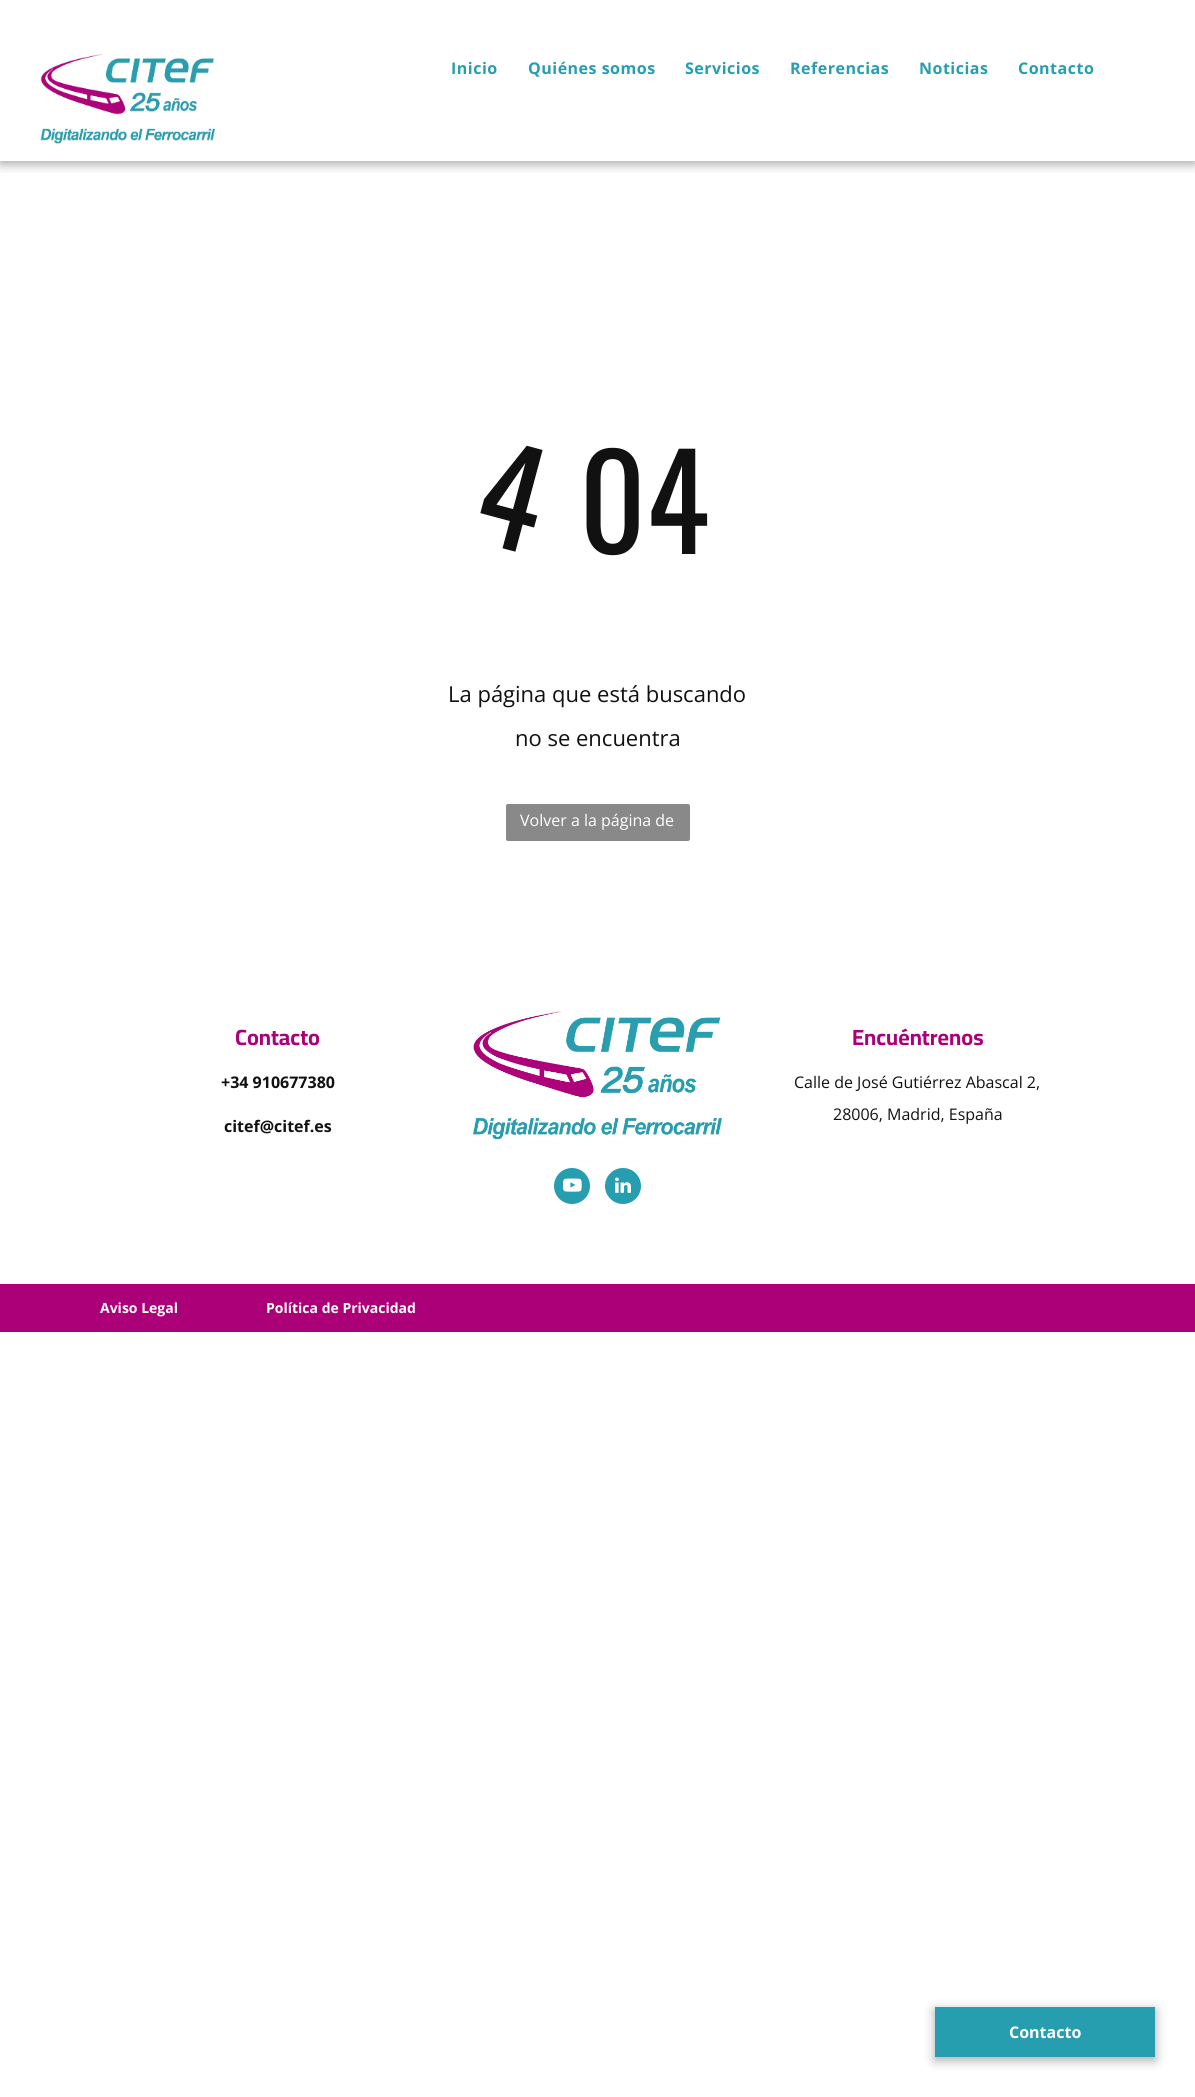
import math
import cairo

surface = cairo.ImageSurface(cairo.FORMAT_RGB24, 1195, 2097)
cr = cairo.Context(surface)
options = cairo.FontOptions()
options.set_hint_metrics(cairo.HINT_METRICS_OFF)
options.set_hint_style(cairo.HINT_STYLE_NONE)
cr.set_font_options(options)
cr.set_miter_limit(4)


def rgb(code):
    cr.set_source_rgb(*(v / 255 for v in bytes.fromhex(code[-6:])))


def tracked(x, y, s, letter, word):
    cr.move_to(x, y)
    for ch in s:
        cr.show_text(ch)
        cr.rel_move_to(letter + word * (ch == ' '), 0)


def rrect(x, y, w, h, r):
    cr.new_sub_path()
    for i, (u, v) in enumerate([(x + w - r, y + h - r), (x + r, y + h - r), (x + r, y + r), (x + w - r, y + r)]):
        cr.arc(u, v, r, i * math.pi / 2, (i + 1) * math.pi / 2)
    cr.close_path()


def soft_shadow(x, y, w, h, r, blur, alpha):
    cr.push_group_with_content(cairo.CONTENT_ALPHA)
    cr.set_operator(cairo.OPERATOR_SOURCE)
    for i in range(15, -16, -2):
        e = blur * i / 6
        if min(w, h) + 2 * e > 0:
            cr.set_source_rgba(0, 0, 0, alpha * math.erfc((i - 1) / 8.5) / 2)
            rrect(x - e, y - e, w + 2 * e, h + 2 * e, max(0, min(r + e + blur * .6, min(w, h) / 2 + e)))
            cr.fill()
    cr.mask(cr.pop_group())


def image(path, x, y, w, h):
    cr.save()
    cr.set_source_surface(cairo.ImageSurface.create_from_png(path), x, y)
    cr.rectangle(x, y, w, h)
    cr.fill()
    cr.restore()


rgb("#ffffff")
cr.paint()
cr.save()
cr.rectangle(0, 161, 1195, 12)
cr.clip()
rgb("#000000")
soft_shadow(0, 3, 1195, 161, 0, 5.5, 0.35)
cr.restore()
image("img/1.png", 40, 54, 175, 90)
rgb("#898989")
rrect(506, 804, 184, 37, 2)
cr.fill()
image("img/2.png", 472, 1011, 250, 129)
rgb("#279db0")
cr.arc(572, 1186, 18, 0, 2 * math.pi)
cr.fill()
image("img/3.png", 563, 1178, 19, 14)
cr.arc(623, 1186, 18, 0, 2 * math.pi)
cr.fill()
image("img/4.png", 615, 1177, 16, 16)
rgb("#ac0078")
cr.rectangle(0, 1284, 1195, 48)
cr.fill()
rgb("#000000")
soft_shadow(935, 2010, 220, 50, 0, 5.5, 0.35)
rgb("#279db0")
cr.rectangle(935, 2007, 220, 50)
cr.fill()
cr.select_font_face("Open Sans", cairo.FONT_SLANT_NORMAL, cairo.FONT_WEIGHT_BOLD)
cr.set_font_size(16)
for x, y, s in [
    (451, 74, "Inicio"),
    (528, 74, "Quiénes somos"),
    (685, 74, "Servicios"),
    (790, 74, "Referencias"),
    (919, 74, "Noticias"),
    (1018, 74, "Contacto"),
]:
    tracked(x, y, s, 0.5, 0)
cr.select_font_face("Oswald")
cr.set_font_size(130)
rgb("#111111")
cr.save()
cr.translate(468, 539)
cr.rotate(15 * math.pi / 180)
cr.move_to(0, 0)
cr.show_text("4")
cr.restore()
cr.move_to(579, 554)
cr.show_text("04")
cr.select_font_face("Open Sans")
cr.set_font_size(22)
cr.move_to(448, 702)
cr.show_text("La página que está buscando")
cr.move_to(515, 746)
cr.show_text("no se encuentra")
cr.set_font_size(16)
rgb("#ffffff")
cr.move_to(520, 826)
cr.show_text("Volver a la página de")
cr.select_font_face("Cairo", cairo.FONT_SLANT_NORMAL, cairo.FONT_WEIGHT_BOLD)
cr.set_font_size(22)
rgb("#ac0078")
cr.move_to(235, 1045)
cr.show_text("Contacto")
cr.select_font_face("Open Sans", cairo.FONT_SLANT_NORMAL, cairo.FONT_WEIGHT_BOLD)
cr.set_font_size(16)
rgb("#111111")
cr.move_to(221, 1088)
cr.show_text("+34 910677380")
cr.move_to(224, 1132)
cr.show_text("citef@citef.es")
cr.select_font_face("Cairo", cairo.FONT_SLANT_NORMAL, cairo.FONT_WEIGHT_BOLD)
cr.set_font_size(22)
rgb("#ac0078")
cr.move_to(852, 1045)
cr.show_text("Encuéntrenos")
cr.select_font_face("Open Sans")
cr.set_font_size(16)
rgb("#111111")
cr.move_to(794, 1088)
cr.show_text("Calle de José Gutiérrez Abascal 2,")
cr.move_to(833, 1120)
cr.show_text("28006, Madrid, España")
cr.select_font_face("Open Sans", cairo.FONT_SLANT_NORMAL, cairo.FONT_WEIGHT_BOLD)
cr.set_font_size(14)
rgb("#ffffff")
cr.move_to(100, 1313)
cr.show_text("Aviso Legal")
cr.move_to(266, 1313)
cr.show_text("Política de Privacidad")
cr.set_font_size(16)
cr.move_to(1009, 2038)
cr.show_text("Contacto")
surface.write_to_png("page.png")
